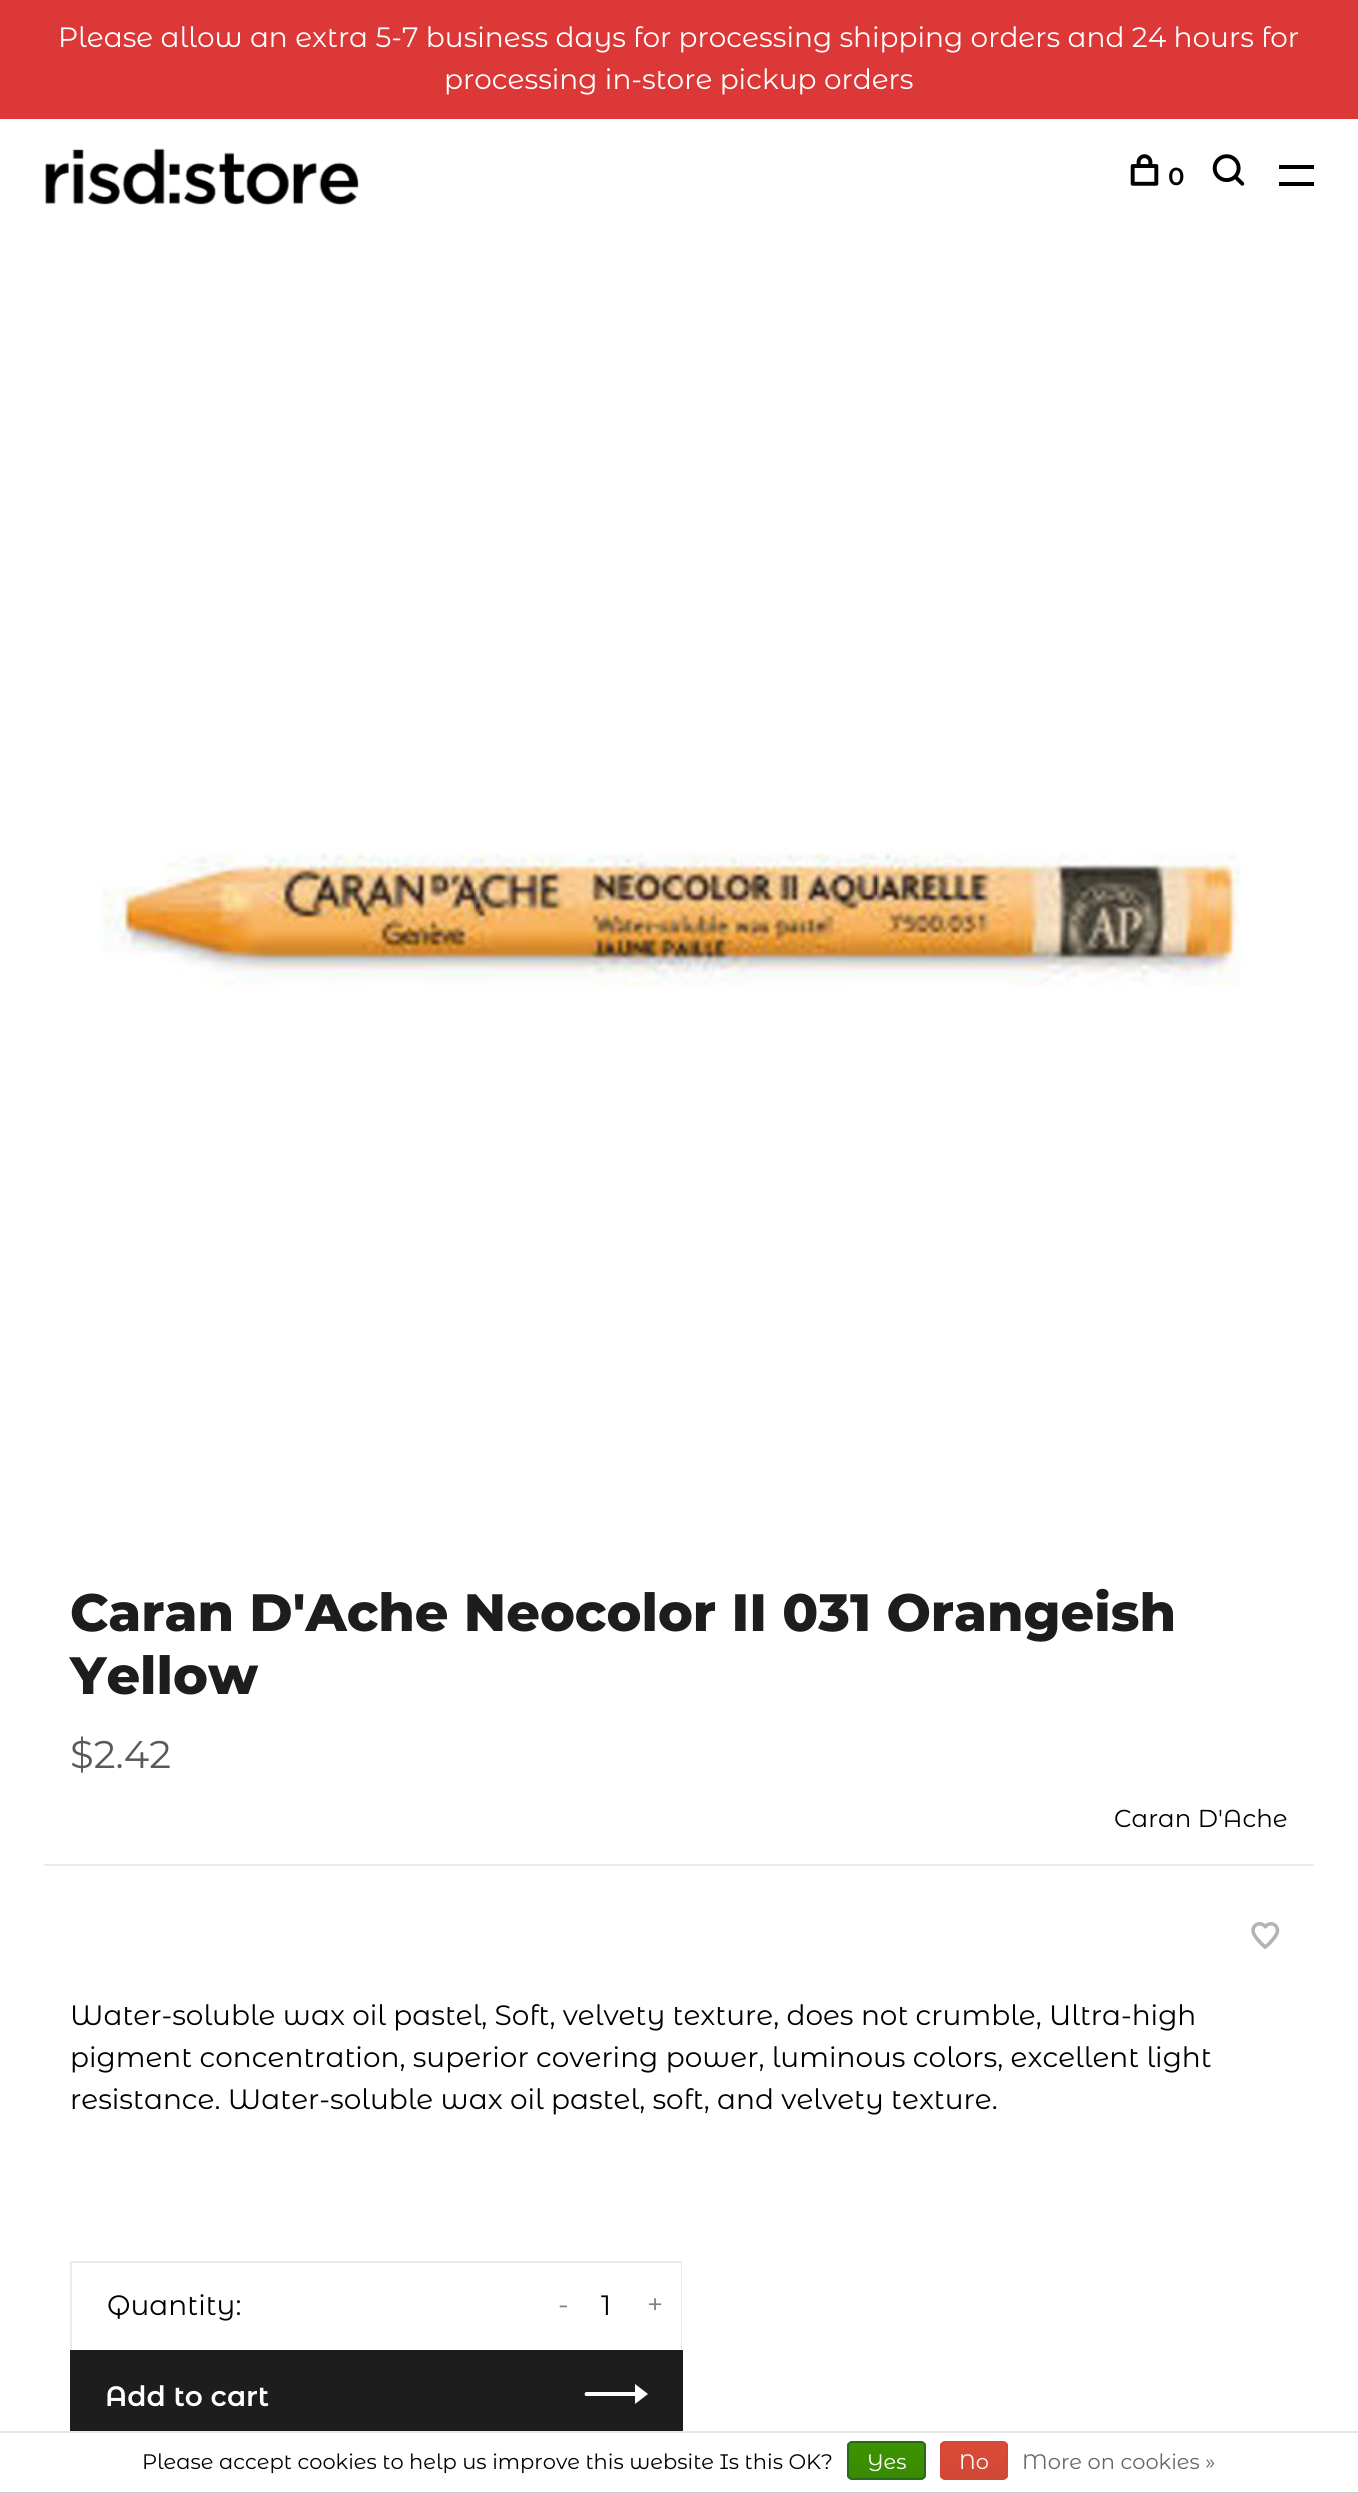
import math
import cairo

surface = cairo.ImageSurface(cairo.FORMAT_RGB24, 1358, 2493)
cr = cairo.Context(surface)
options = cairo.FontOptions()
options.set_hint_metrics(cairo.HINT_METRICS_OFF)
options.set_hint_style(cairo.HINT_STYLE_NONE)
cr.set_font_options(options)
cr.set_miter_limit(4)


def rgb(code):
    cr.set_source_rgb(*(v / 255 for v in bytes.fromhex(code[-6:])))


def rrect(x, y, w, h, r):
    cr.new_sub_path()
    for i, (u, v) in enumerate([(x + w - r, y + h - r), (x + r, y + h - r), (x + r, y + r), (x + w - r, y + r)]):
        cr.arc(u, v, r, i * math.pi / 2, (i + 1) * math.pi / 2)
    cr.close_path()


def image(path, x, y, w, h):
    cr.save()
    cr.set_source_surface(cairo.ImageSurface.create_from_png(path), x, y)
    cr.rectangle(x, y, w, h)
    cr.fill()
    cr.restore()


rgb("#ffffff")
cr.paint()
rgb("#dc3838")
cr.rectangle(0, 0, 1358, 119)
cr.fill()
image("img/1.png", 45, 148, 314, 57)
image("img/2.png", 1130, 154, 29, 32)
image("img/3.png", 1212, 154, 33, 32)
rgb("#000000")
cr.rectangle(1279, 165, 35, 4)
cr.fill()
cr.rectangle(1279, 182, 35, 4)
cr.fill()
image("img/4.png", 96, 849, 1147, 138)
rgb("#ebebeb")
cr.rectangle(44, 1864, 1270, 2)
cr.fill()
image("img/5.png", 1251, 1922, 29, 27)
cr.new_path()
cr.move_to(70, 2261)
cr.line_to(682, 2261)
cr.line_to(681, 2263)
cr.line_to(72, 2263)
cr.close_path()
cr.fill()
cr.set_source_rgba(0, 0, 0, 0.08)
cr.new_path()
cr.move_to(682, 2261)
cr.line_to(682, 2350)
cr.line_to(681, 2350)
cr.line_to(681, 2263)
cr.close_path()
cr.fill()
cr.new_path()
cr.move_to(70, 2350)
cr.line_to(70, 2261)
cr.line_to(72, 2263)
cr.line_to(72, 2350)
cr.close_path()
cr.fill()
rgb("#1d1d1d")
cr.rectangle(70, 2350, 613, 81)
cr.fill()
rgb("#ffffff")
cr.new_path()
cr.move_to(635, 2392)
cr.line_to(586, 2392)
cr.line_to(585, 2393)
cr.curve_to(584, 2394, 585, 2396, 586, 2396)
cr.line_to(635, 2396)
cr.line_to(635, 2404)
cr.line_to(648, 2394)
cr.line_to(635, 2384)
cr.close_path()
cr.fill()
rgb("#e6e6e6")
cr.rectangle(0, 2431, 1358, 2)
cr.fill()
rgb("#cccccc")
cr.rectangle(0, 2492, 1358, 1)
cr.fill()
cr.save()
rrect(847, 2441, 79, 39, 5)
cr.clip()
gradient = cairo.LinearGradient(886, 2443, 886, 2478)
gradient.add_color_stop_rgba(0, 0.235, 0.576, 0, 1)
gradient.add_color_stop_rgba(1, 0.224, 0.541, 0, 1)
cr.set_source(gradient)
cr.rectangle(847, 2443, 79, 35)
cr.fill()
cr.restore()
rrect(848, 2442, 77, 37, 4)
rgb("#29691d")
cr.stroke()
cr.save()
rrect(940, 2441, 68, 39, 5)
cr.clip()
gradient = cairo.LinearGradient(974, 2443, 974, 2478)
gradient.add_color_stop_rgba(0, 0.863, 0.29, 0.22, 1)
gradient.add_color_stop_rgba(1, 0.82, 0.282, 0.212, 1)
cr.set_source(gradient)
cr.rectangle(940, 2443, 68, 35)
cr.fill()
cr.restore()
rrect(941, 2442, 66, 37, 4)
rgb("#d14836")
cr.stroke()
cr.select_font_face("Montserrat Alternates")
cr.set_font_size(28)
rgb("#ffffff")
cr.move_to(58, 47)
cr.show_text("Please allow an extra 5-7 business days for processing shipping orders and 24 hours for")
cr.move_to(444, 89)
cr.show_text("processing in-store pickup orders")
cr.select_font_face("Montserrat Alternates SemiBold")
cr.set_font_size(24.5)
rgb("#000000")
cr.move_to(1168, 185)
cr.show_text("0")
cr.select_font_face("Montserrat ExtraBold")
cr.set_font_size(52.5)
rgb("#1d1d1d")
cr.move_to(70, 1631)
cr.show_text("Caran D'Ache Neocolor II 031 Orangeish")
cr.move_to(70, 1694)
cr.show_text("Yellow")
cr.select_font_face("Montserrat Alternates")
cr.set_font_size(38.5)
rgb("#595959")
cr.move_to(70, 1768)
cr.show_text("$2.42")
cr.set_font_size(24.5)
rgb("#000000")
cr.move_to(1114, 1827)
cr.show_text("Caran D'Ache")
cr.set_font_size(28)
for x, y, s in [
    (70, 2025, "Water-soluble wax oil pastel, Soft, velvety texture, does not crumble, Ultra-high"),
    (70, 2067, "pigment concentration, superior covering power, luminous colors, excellent light"),
    (70, 2109, "resistance. Water-soluble wax oil pastel, soft, and velvety texture."),
    (107, 2315, "Quantity:"),
    (601, 2315, "1"),
]:
    cr.move_to(x, y)
    cr.show_text(s)
rgb("#808080")
cr.move_to(558, 2314)
cr.show_text("-")
cr.move_to(647, 2314)
cr.show_text("+")
cr.select_font_face("Montserrat Alternates SemiBold")
rgb("#ffffff")
cr.move_to(105, 2406)
cr.show_text("Add to cart")
cr.select_font_face("Montserrat Alternates")
cr.set_font_size(21)
rgb("#000000")
cr.move_to(142, 2469)
cr.show_text("Please accept cookies to help us improve this website Is this OK?")
rgb("#ffffff")
cr.move_to(867, 2469)
cr.show_text("Yes")
cr.move_to(959, 2469)
cr.show_text("No")
rgb("#666666")
cr.move_to(1022, 2469)
cr.show_text("More on cookies »")
surface.write_to_png("page.png")
